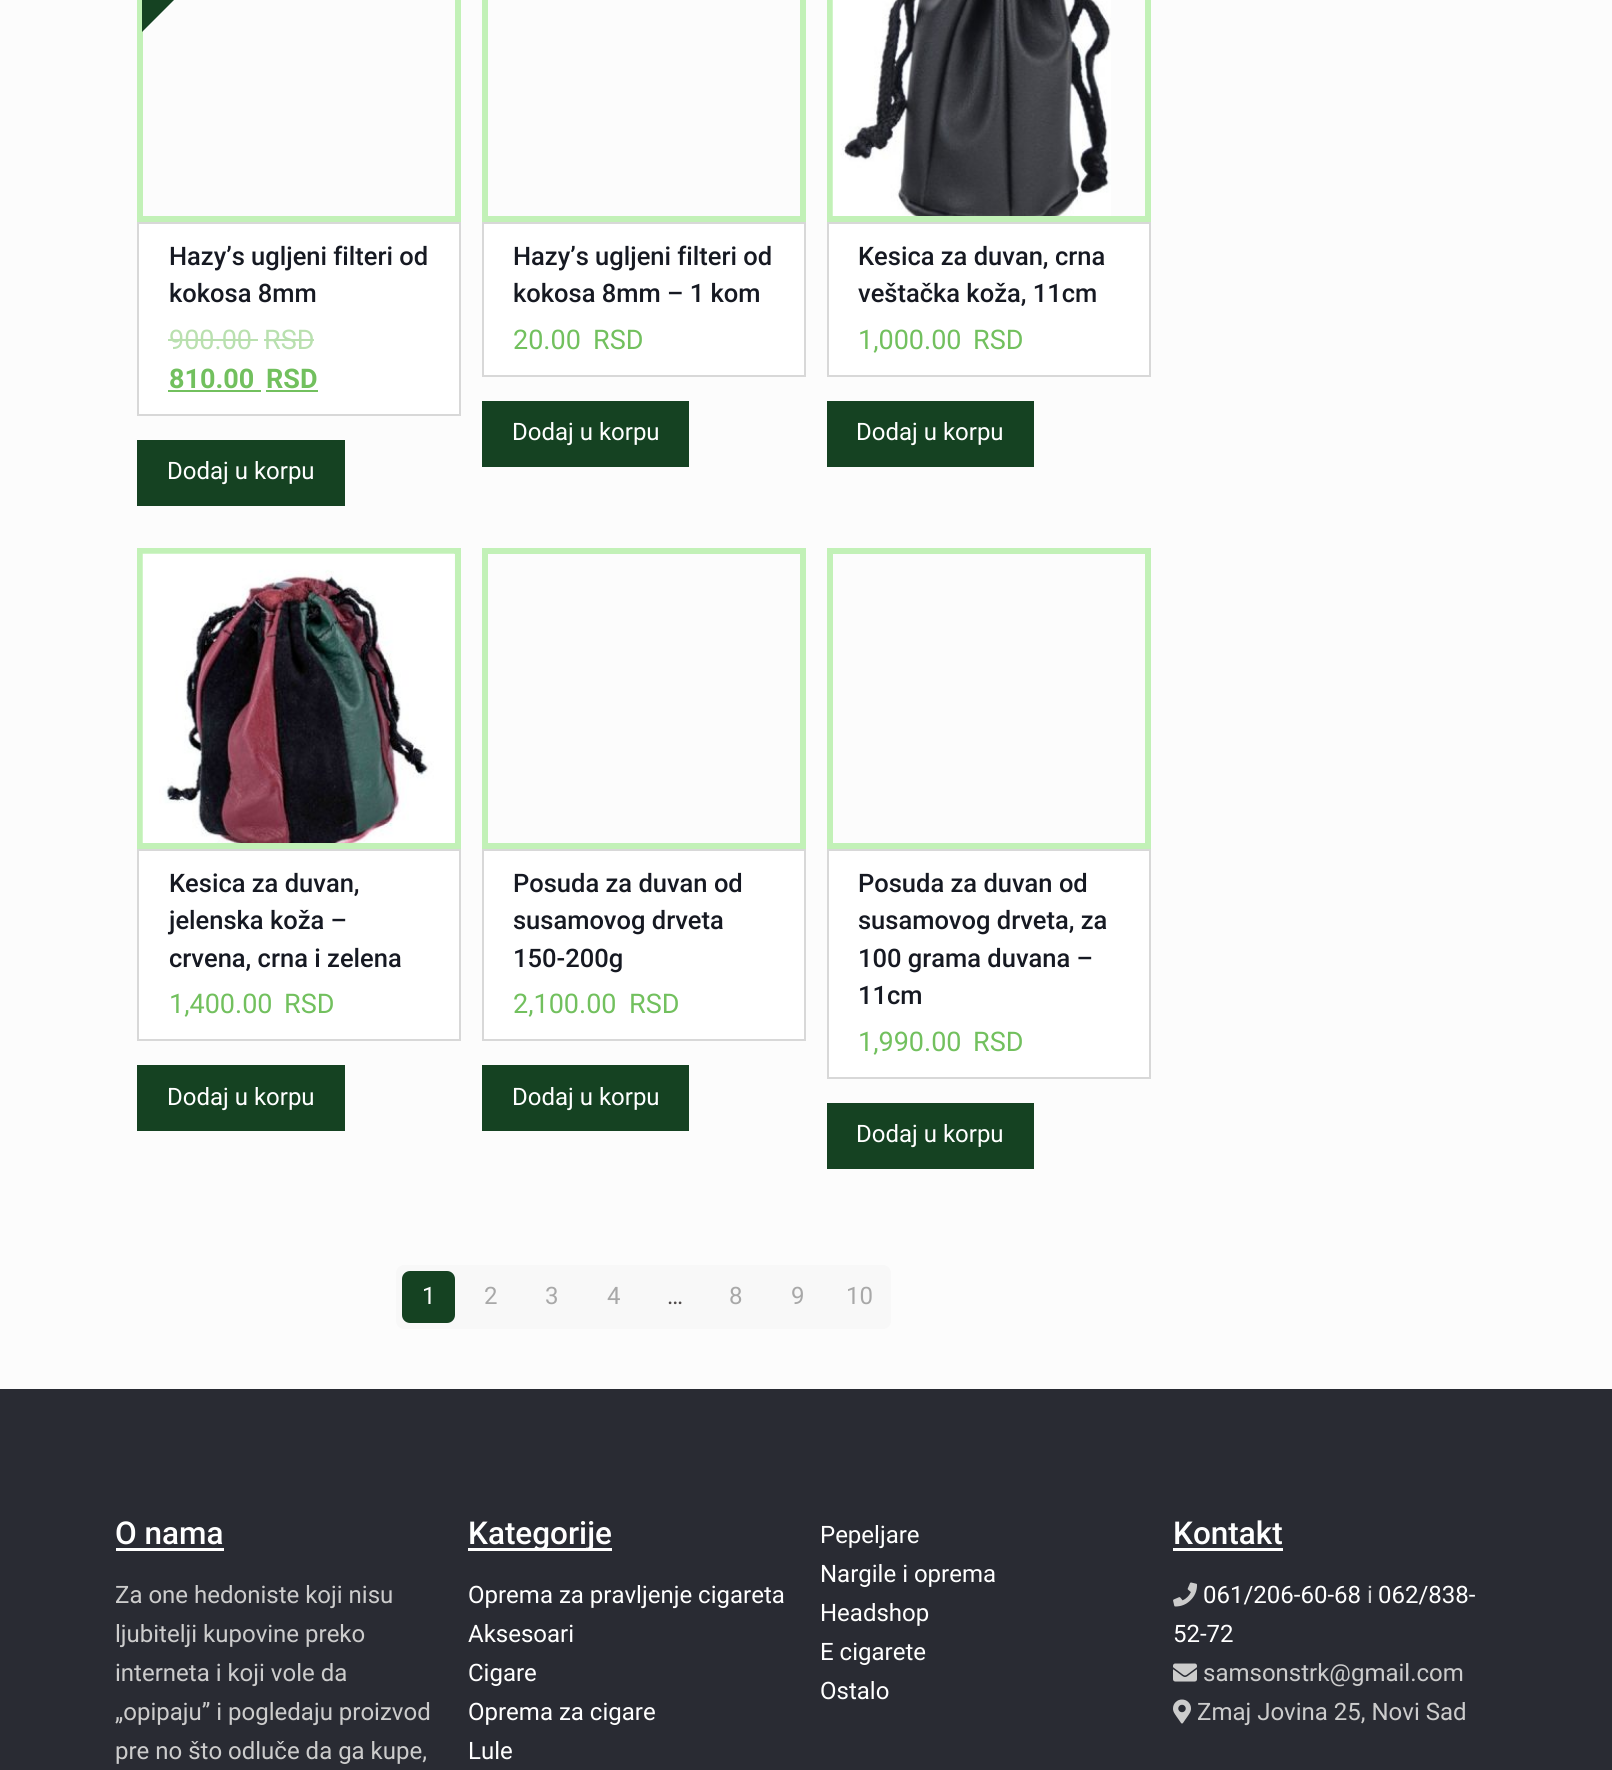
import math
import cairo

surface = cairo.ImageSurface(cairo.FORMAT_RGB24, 1612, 1770)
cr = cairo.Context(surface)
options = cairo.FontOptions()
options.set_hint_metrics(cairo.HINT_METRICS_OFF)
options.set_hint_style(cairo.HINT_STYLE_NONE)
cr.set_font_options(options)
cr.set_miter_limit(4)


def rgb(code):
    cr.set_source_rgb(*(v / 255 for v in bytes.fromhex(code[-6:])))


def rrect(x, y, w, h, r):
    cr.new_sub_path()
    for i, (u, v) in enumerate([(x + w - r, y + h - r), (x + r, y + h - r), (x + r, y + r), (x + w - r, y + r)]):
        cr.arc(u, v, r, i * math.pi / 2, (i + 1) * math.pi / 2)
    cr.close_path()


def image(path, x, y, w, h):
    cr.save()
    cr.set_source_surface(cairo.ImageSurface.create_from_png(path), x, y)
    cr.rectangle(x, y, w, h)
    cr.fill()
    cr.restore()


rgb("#fcfcfc")
cr.paint()
cr.rectangle(140, -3, 318, 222)
rgb("#c2f1b7")
cr.set_line_width(6)
cr.stroke()
rgb("#154222")
cr.new_path()
cr.move_to(142, -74)
cr.line_to(248, -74)
cr.line_to(142, 32)
cr.close_path()
cr.fill()
rgb("#ffffff")
cr.rectangle(138, 223, 322, 192)
cr.fill_preserve()
rgb("#d8d8d8")
cr.set_line_width(2)
cr.stroke()
for x, y, w, h, color in [
    (168, 339, 90, 2, "#b9e0af"),
    (264, 339, 50, 2, "#b9e0af"),
    (168, 390, 93, 2, "#72c05e"),
    (266, 390, 52, 2, "#72c05e"),
    (137, 440, 208, 66, "#154222"),
]:
    rgb(color)
    cr.rectangle(x, y, w, h)
    cr.fill()
cr.rectangle(485, -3, 318, 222)
rgb("#c2f1b7")
cr.set_line_width(6)
cr.stroke()
rgb("#ffffff")
cr.rectangle(483, 223, 322, 153)
cr.fill_preserve()
rgb("#d8d8d8")
cr.set_line_width(2)
cr.stroke()
rgb("#154222")
cr.rectangle(482, 401, 207, 66)
cr.fill()
cr.rectangle(830, -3, 318, 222)
rgb("#c2f1b7")
cr.set_line_width(6)
cr.stroke()
image("img/1.png", 832, 0, 279, 216)
rgb("#ffffff")
cr.rectangle(828, 223, 322, 153)
cr.fill_preserve()
rgb("#d8d8d8")
cr.set_line_width(2)
cr.stroke()
rgb("#154222")
cr.rectangle(827, 401, 207, 66)
cr.fill()
cr.rectangle(140, 551, 318, 295)
rgb("#c2f1b7")
cr.set_line_width(6)
cr.stroke()
image("img/2.png", 142, 553, 313, 290)
rgb("#ffffff")
cr.rectangle(138, 850, 322, 190)
cr.fill_preserve()
rgb("#d8d8d8")
cr.set_line_width(2)
cr.stroke()
rgb("#154222")
cr.rectangle(137, 1065, 208, 66)
cr.fill()
cr.rectangle(485, 551, 318, 295)
rgb("#c2f1b7")
cr.set_line_width(6)
cr.stroke()
rgb("#ffffff")
cr.rectangle(483, 850, 322, 190)
cr.fill_preserve()
rgb("#d8d8d8")
cr.set_line_width(2)
cr.stroke()
rgb("#154222")
cr.rectangle(482, 1065, 207, 66)
cr.fill()
cr.rectangle(830, 551, 318, 295)
rgb("#c2f1b7")
cr.set_line_width(6)
cr.stroke()
rgb("#ffffff")
cr.rectangle(828, 850, 322, 228)
cr.fill_preserve()
rgb("#d8d8d8")
cr.set_line_width(2)
cr.stroke()
rgb("#154222")
cr.rectangle(827, 1103, 207, 66)
cr.fill()
rgb("#f8f8f8")
rrect(396, 1265, 495, 64, 8)
cr.fill()
rgb("#154222")
rrect(402, 1271, 53, 52, 8)
cr.fill()
for x, y, w, h, color in [
    (0, 1389, 1612, 381, "#292b33"),
    (116, 1548, 108, 3, "#ffffff"),
    (468, 1548, 144, 3, "#ffffff"),
    (1173, 1548, 110, 3, "#ffffff"),
]:
    rgb(color)
    cr.rectangle(x, y, w, h)
    cr.fill()
image("img/3.png", 1173, 1582, 24, 25)
image("img/4.png", 1173, 1663, 24, 19)
image("img/5.png", 1173, 1699, 18, 25)
cr.select_font_face("Roboto Medium")
cr.set_font_size(25.5)
rgb("#161922")
cr.move_to(169, 265)
cr.show_text("Hazy’s ugljeni filteri od")
cr.move_to(169, 302)
cr.show_text("kokosa 8mm")
cr.select_font_face("Roboto")
cr.set_font_size(27)
rgb("#b9e0af")
cr.move_to(169, 349)
cr.show_text("900.00")
cr.move_to(264, 349)
cr.show_text("RSD")
cr.select_font_face("Roboto", cairo.FONT_SLANT_NORMAL, cairo.FONT_WEIGHT_BOLD)
rgb("#72c05e")
cr.move_to(169, 388)
cr.show_text("810.00")
cr.move_to(266, 388)
cr.show_text("RSD")
cr.select_font_face("Roboto")
cr.set_font_size(24)
rgb("#ffffff")
cr.move_to(167, 479)
cr.show_text("Dodaj u korpu")
cr.select_font_face("Roboto Medium")
cr.set_font_size(25.5)
rgb("#161922")
cr.move_to(513, 265)
cr.show_text("Hazy’s ugljeni filteri od")
cr.move_to(513, 302)
cr.show_text("kokosa 8mm – 1 kom")
cr.select_font_face("Roboto")
cr.set_font_size(27)
rgb("#72c05e")
cr.move_to(513, 349)
cr.show_text("20.00")
cr.move_to(593, 349)
cr.show_text("RSD")
cr.set_font_size(24)
rgb("#ffffff")
cr.move_to(512, 440)
cr.show_text("Dodaj u korpu")
cr.select_font_face("Roboto Medium")
cr.set_font_size(25.5)
rgb("#161922")
cr.move_to(858, 265)
cr.show_text("Kesica za duvan, crna")
cr.move_to(858, 302)
cr.show_text("veštačka koža, 11cm")
cr.select_font_face("Roboto")
cr.set_font_size(27)
rgb("#72c05e")
cr.move_to(858, 349)
cr.show_text("1,000.00")
cr.move_to(973, 349)
cr.show_text("RSD")
cr.set_font_size(24)
rgb("#ffffff")
cr.move_to(856, 440)
cr.show_text("Dodaj u korpu")
cr.select_font_face("Roboto Medium")
cr.set_font_size(25.5)
rgb("#161922")
for x, y, s in [
    (169, 892, "Kesica za duvan,"),
    (169, 929, "jelenska koža –"),
    (169, 967, "crvena, crna i zelena"),
]:
    cr.move_to(x, y)
    cr.show_text(s)
cr.select_font_face("Roboto")
cr.set_font_size(27)
rgb("#72c05e")
cr.move_to(169, 1013)
cr.show_text("1,400.00")
cr.move_to(284, 1013)
cr.show_text("RSD")
cr.set_font_size(24)
rgb("#ffffff")
cr.move_to(167, 1105)
cr.show_text("Dodaj u korpu")
cr.select_font_face("Roboto Medium")
cr.set_font_size(25.5)
rgb("#161922")
for x, y, s in [
    (513, 892, "Posuda za duvan od"),
    (513, 929, "susamovog drveta"),
    (513, 967, "150-200g"),
]:
    cr.move_to(x, y)
    cr.show_text(s)
cr.select_font_face("Roboto")
cr.set_font_size(27)
rgb("#72c05e")
cr.move_to(513, 1013)
cr.show_text("2,100.00")
cr.move_to(629, 1013)
cr.show_text("RSD")
cr.set_font_size(24)
rgb("#ffffff")
cr.move_to(512, 1105)
cr.show_text("Dodaj u korpu")
cr.select_font_face("Roboto Medium")
cr.set_font_size(25.5)
rgb("#161922")
for x, y, s in [
    (858, 892, "Posuda za duvan od"),
    (858, 929, "susamovog drveta, za"),
    (858, 967, "100 grama duvana –"),
    (858, 1004, "11cm"),
]:
    cr.move_to(x, y)
    cr.show_text(s)
cr.select_font_face("Roboto")
cr.set_font_size(27)
rgb("#72c05e")
cr.move_to(858, 1051)
cr.show_text("1,990.00")
cr.move_to(973, 1051)
cr.show_text("RSD")
cr.set_font_size(24)
rgb("#ffffff")
cr.move_to(856, 1142)
cr.show_text("Dodaj u korpu")
cr.move_to(422, 1304)
cr.show_text("1")
rgb("#a8a8a8")
for x, y, s in [
    (484, 1304, "2"),
    (545, 1304, "3"),
    (607, 1304, "4"),
]:
    cr.move_to(x, y)
    cr.show_text(s)
rgb("#514c4c")
cr.move_to(667, 1304)
cr.show_text("…")
rgb("#a8a8a8")
for x, y, s in [
    (729, 1304, "8"),
    (791, 1304, "9"),
    (846, 1304, "10"),
]:
    cr.move_to(x, y)
    cr.show_text(s)
cr.select_font_face("Roboto Medium")
cr.set_font_size(31.5)
rgb("#ffffff")
cr.move_to(115, 1544)
cr.show_text("O nama")
cr.select_font_face("Roboto")
cr.set_font_size(24)
rgb("#cccccc")
for x, y, s in [
    (115, 1603, "Za one hedoniste koji nisu"),
    (115, 1642, "ljubitelji kupovine preko"),
    (115, 1681, "interneta i koji vole da"),
    (115, 1720, "„opipaju” i pogledaju proizvod"),
    (115, 1759, "pre no što odluče da ga kupe,"),
]:
    cr.move_to(x, y)
    cr.show_text(s)
cr.select_font_face("Roboto Medium")
cr.set_font_size(31.5)
rgb("#ffffff")
cr.move_to(468, 1544)
cr.show_text("Kategorije")
cr.select_font_face("Roboto")
cr.set_font_size(24)
for x, y, s in [
    (468, 1603, "Oprema za pravljenje cigareta"),
    (468, 1642, "Aksesoari"),
    (468, 1681, "Cigare"),
    (468, 1720, "Oprema za cigare"),
    (468, 1759, "Lule"),
    (820, 1543, "Pepeljare"),
    (820, 1582, "Nargile i oprema"),
    (820, 1621, "Headshop"),
    (820, 1660, "E cigarete"),
    (820, 1699, "Ostalo"),
]:
    cr.move_to(x, y)
    cr.show_text(s)
cr.select_font_face("Roboto Medium")
cr.set_font_size(31.5)
cr.move_to(1173, 1544)
cr.show_text("Kontakt")
cr.select_font_face("Roboto")
cr.set_font_size(24)
cr.move_to(1203, 1603)
cr.show_text("061/206-60-68")
rgb("#cccccc")
cr.move_to(1367, 1603)
cr.show_text("i")
rgb("#ffffff")
cr.move_to(1378, 1603)
cr.show_text("062/838-")
cr.move_to(1173, 1642)
cr.show_text("52-72")
rgb("#cccccc")
cr.move_to(1203, 1681)
cr.show_text("samsonstrk@gmail.com")
cr.move_to(1197, 1720)
cr.show_text("Zmaj Jovina 25, Novi Sad")
surface.write_to_png("page.png")
